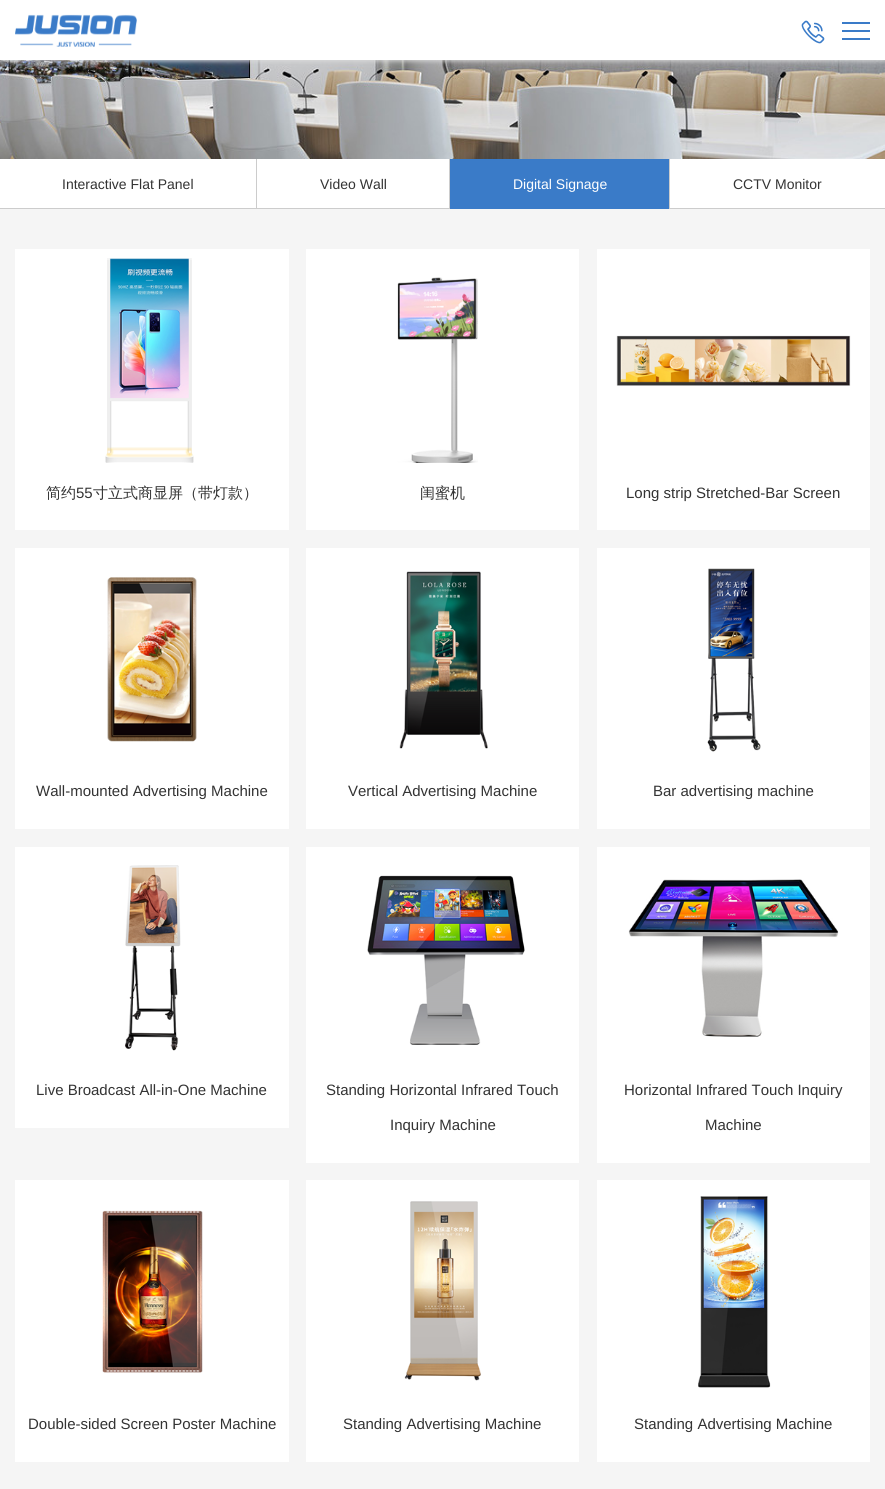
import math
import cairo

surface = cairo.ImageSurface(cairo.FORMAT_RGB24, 885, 1489)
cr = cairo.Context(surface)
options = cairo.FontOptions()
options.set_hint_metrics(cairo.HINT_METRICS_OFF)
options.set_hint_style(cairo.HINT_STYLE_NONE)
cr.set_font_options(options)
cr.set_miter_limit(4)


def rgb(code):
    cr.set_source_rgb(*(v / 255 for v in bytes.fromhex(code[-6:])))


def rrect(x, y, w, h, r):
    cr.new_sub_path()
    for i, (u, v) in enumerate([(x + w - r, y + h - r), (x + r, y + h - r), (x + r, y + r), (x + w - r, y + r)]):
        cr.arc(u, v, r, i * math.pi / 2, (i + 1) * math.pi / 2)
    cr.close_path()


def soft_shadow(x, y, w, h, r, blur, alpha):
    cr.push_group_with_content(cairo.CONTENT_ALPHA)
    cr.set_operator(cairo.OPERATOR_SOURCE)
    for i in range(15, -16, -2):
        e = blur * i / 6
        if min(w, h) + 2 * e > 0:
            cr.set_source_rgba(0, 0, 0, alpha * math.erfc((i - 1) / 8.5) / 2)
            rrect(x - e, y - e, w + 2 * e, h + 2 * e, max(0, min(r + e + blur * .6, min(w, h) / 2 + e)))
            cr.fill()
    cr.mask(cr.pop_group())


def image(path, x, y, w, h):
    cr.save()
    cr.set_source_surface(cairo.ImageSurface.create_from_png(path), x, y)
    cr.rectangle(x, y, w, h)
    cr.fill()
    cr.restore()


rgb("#f5f5f5")
cr.paint()
image("img/3.png", 0, 60, 885, 99)
rgb("#dddddd")
soft_shadow(0, 1, 885, 60, 0, 2.5, 1)
rgb("#ffffff")
cr.rectangle(0, 0, 885, 60)
cr.fill()
image("img/1.png", 15, 14, 122, 33)
image("img/2.png", 801, 20, 24, 24)
for x, y, w, h, color in [
    (842, 22, 28, 2, "#3a7bc8"),
    (842, 30, 28, 2, "#3a7bc8"),
    (842, 38, 28, 2, "#3a7bc8"),
    (0, 159, 256, 49, "#ffffff"),
    (0, 208, 450, 1, "#cccccc"),
    (257, 159, 192, 49, "#ffffff"),
    (256, 159, 1, 50, "#cccccc"),
    (449, 208, 221, 1, "#3a7bc8"),
    (449, 159, 1, 50, "#cccccc"),
    (450, 159, 219, 49, "#3a7bc8"),
    (670, 159, 215, 49, "#ffffff"),
    (669, 208, 216, 1, "#cccccc"),
    (669, 159, 1, 50, "#cccccc"),
    (15, 249, 274, 281, "#ffffff"),
]:
    rgb(color)
    cr.rectangle(x, y, w, h)
    cr.fill()
image("img/4.png", 105, 258, 89, 205)
cr.rectangle(306, 249, 273, 281)
cr.fill()
image("img/5.png", 397, 277, 81, 186)
cr.rectangle(597, 249, 273, 281)
cr.fill()
image("img/6.png", 616, 335, 235, 51)
cr.rectangle(15, 548, 274, 281)
cr.fill()
image("img/7.png", 107, 577, 90, 165)
cr.rectangle(306, 548, 273, 281)
cr.fill()
image("img/8.png", 399, 571, 89, 178)
cr.rectangle(597, 548, 273, 281)
cr.fill()
image("img/9.png", 707, 568, 54, 184)
cr.rectangle(15, 847, 274, 281)
cr.fill()
image("img/10.png", 125, 865, 56, 186)
cr.rectangle(306, 847, 273, 316)
cr.fill()
image("img/11.png", 367, 875, 158, 170)
cr.rectangle(597, 847, 273, 316)
cr.fill()
image("img/12.png", 628, 879, 211, 158)
cr.rectangle(15, 1180, 274, 282)
cr.fill()
image("img/13.png", 102, 1210, 101, 163)
cr.rectangle(306, 1180, 273, 282)
cr.fill()
image("img/14.png", 404, 1201, 77, 180)
cr.rectangle(597, 1180, 273, 282)
cr.fill()
image("img/15.png", 698, 1196, 73, 192)
cr.select_font_face("Liberation Sans")
cr.set_font_size(14)
rgb("#333333")
cr.move_to(62, 189)
cr.show_text("Interactive Flat Panel")
cr.move_to(320, 189)
cr.show_text("Video Wall")
rgb("#ffffff")
cr.move_to(513, 189)
cr.show_text("Digital Signage")
rgb("#333333")
cr.move_to(733, 189)
cr.show_text("CCTV Monitor")
cr.select_font_face("WenQuanYi Zen Hei Medium")
cr.set_font_size(15)
cr.move_to(46, 498)
cr.show_text("简约")
cr.select_font_face("Liberation Sans")
cr.move_to(76, 498)
cr.show_text("55")
cr.select_font_face("WenQuanYi Zen Hei Medium")
cr.move_to(93, 498)
cr.show_text("寸立式商显屏（带灯款）")
cr.move_to(420, 498)
cr.show_text("闺蜜机")
cr.select_font_face("Liberation Sans")
for x, y, s in [
    (626, 498, "Long strip Stretched-Bar Screen"),
    (36, 796, "Wall-mounted Advertising Machine"),
    (348, 796, "Vertical Advertising Machine"),
    (653, 796, "Bar advertising machine"),
    (36, 1095, "Live Broadcast All-in-One Machine"),
    (326, 1095, "Standing Horizontal Infrared Touch"),
    (390, 1130, "Inquiry Machine"),
    (624, 1095, "Horizontal Infrared Touch Inquiry"),
    (705, 1130, "Machine"),
    (28, 1429, "Double-sided Screen Poster Machine"),
    (343, 1429, "Standing Advertising Machine"),
    (634, 1429, "Standing Advertising Machine"),
]:
    cr.move_to(x, y)
    cr.show_text(s)
surface.write_to_png("page.png")
